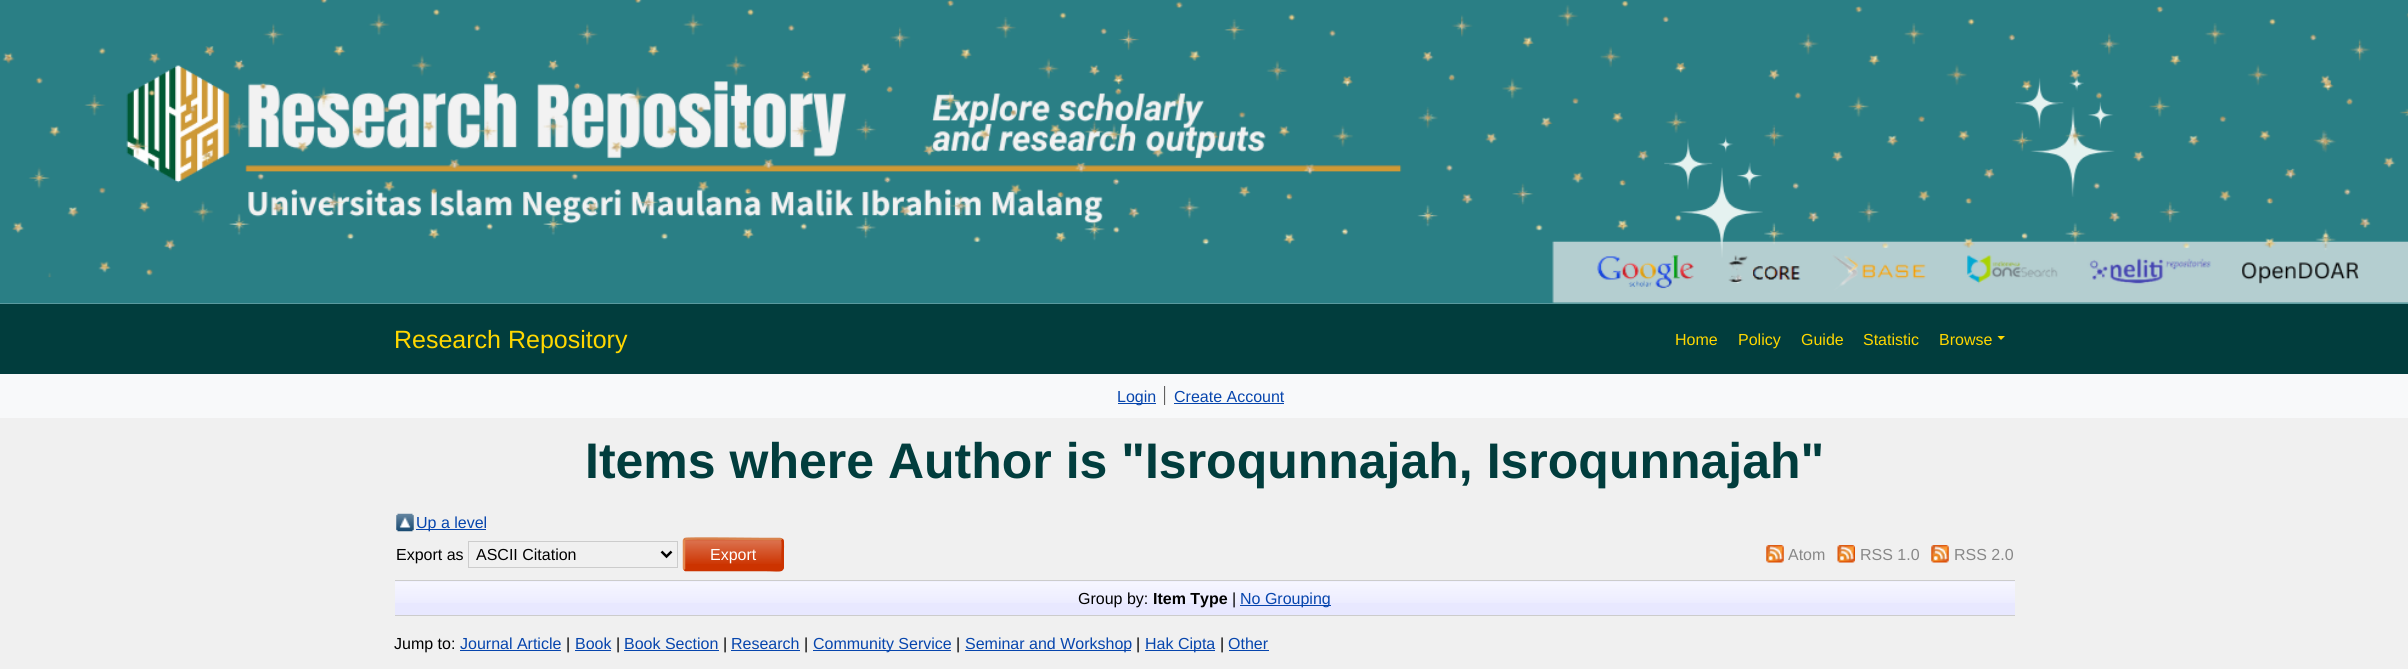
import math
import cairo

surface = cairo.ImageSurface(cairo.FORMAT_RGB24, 2408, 669)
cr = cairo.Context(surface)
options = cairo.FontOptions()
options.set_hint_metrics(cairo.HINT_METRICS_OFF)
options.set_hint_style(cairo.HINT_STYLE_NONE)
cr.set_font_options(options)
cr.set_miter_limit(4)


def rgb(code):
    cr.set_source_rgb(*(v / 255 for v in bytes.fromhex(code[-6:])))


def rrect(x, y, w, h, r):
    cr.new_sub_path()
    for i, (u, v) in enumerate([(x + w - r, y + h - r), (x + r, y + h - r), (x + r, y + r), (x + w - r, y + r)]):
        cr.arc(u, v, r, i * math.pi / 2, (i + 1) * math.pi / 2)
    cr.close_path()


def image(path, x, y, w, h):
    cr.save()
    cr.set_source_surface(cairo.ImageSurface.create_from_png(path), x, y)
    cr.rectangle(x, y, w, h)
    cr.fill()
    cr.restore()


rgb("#f0f0f0")
cr.paint()
image("img/1.png", 0, 0, 2408, 304)
rgb("#013d3d")
cr.rectangle(0, 304, 2408, 70)
cr.fill()
rgb("#ffd700")
cr.new_path()
cr.move_to(1997.5, 336)
cr.line_to(2005, 336)
cr.line_to(2001, 340)
cr.close_path()
cr.fill()
for x, y, w, h, color in [
    (0, 374, 2408, 44, "#f8f9fa"),
    (1164, 386, 1, 19, "#606060"),
    (1118, 403, 38, 1, "#0645ad"),
    (1165, 386, 1, 19, "#e8e8e8"),
    (1174, 403, 110, 1, "#0645ad"),
]:
    rgb(color)
    cr.rectangle(x, y, w, h)
    cr.fill()
image("img/2.png", 396, 513, 18, 19)
cr.rectangle(416, 529, 70, 1)
cr.fill()
cr.rectangle(468.5, 541.5, 209, 26)
rgb("#cccccc")
cr.set_line_width(1)
cr.stroke()
cr.new_path()
cr.move_to(661.5, 551.5)
cr.line_to(666.5, 556.5)
cr.line_to(671.5, 551.5)
rgb("#000000")
cr.set_line_width(2.5)
cr.stroke()
rgb("#cc3300")
rrect(683, 538, 101, 33, 4)
cr.fill()
image("img/3.png", 685, 540, 99, 24)
cr.new_path()
cr.move_to(684.5, 539.5)
cr.line_to(685, 539)
cr.curve_to(687, 538, 756, 539, 764.5, 539)
cr.line_to(780, 539)
cr.line_to(782, 539.5)
rgb("#d8834d")
cr.stroke()
cr.new_path()
cr.move_to(782, 539.5)
cr.curve_to(783.5, 541.5, 782.5, 551.5, 782.5, 554.5)
cr.curve_to(782.5, 574, 786, 570, 764.5, 570)
cr.line_to(685.5, 570)
cr.line_to(684.5, 569.5)
rgb("#cc3300")
cr.stroke()
cr.new_path()
cr.move_to(684.5, 569.5)
cr.curve_to(684, 569, 684, 568, 684, 567.5)
cr.line_to(684, 541)
cr.curve_to(684, 540.5, 684, 540, 684.5, 539.5)
rgb("#e48950")
cr.stroke()
image("img/4.png", 1766, 545, 18, 18)
image("img/5.png", 1837, 545, 18, 18)
image("img/4.png", 1931, 545, 18, 18)
rgb("#e8e8ff")
cr.rectangle(395, 581, 1620, 34)
cr.fill()
image("img/6.png", 395, 581, 1620, 22)
for x, y, w, h, color in [
    (395, 580, 1620, 1, "#cccccc"),
    (395, 615, 1620, 1, "#cccccc"),
    (1240, 605, 91, 1, "#0645ad"),
    (460, 650, 101, 1, "#0645ad"),
    (575, 650, 36, 1, "#0645ad"),
    (624, 650, 95, 1, "#0645ad"),
    (731, 650, 69, 1, "#0645ad"),
    (813, 650, 138, 1, "#0645ad"),
    (965, 650, 166, 1, "#0645ad"),
    (1145, 650, 70, 1, "#0645ad"),
    (1229, 650, 40, 1, "#0645ad"),
]:
    rgb(color)
    cr.rectangle(x, y, w, h)
    cr.fill()
cr.select_font_face("Liberation Sans")
cr.set_font_size(25)
rgb("#ffd700")
cr.move_to(394, 348)
cr.show_text("Research Repository")
cr.set_font_size(16)
for x, y, s in [
    (1675, 345, "Home"),
    (1738, 345, "Policy"),
    (1801, 345, "Guide"),
    (1863, 345, "Statistic"),
    (1939, 345, "Browse"),
]:
    cr.move_to(x, y)
    cr.show_text(s)
rgb("#0645ad")
cr.move_to(1117, 402)
cr.show_text("Login")
cr.move_to(1174, 402)
cr.show_text("Create Account")
cr.select_font_face("Liberation Sans", cairo.FONT_SLANT_NORMAL, cairo.FONT_WEIGHT_BOLD)
cr.set_font_size(50)
rgb("#013d3d")
cr.move_to(585, 478)
cr.show_text("Items where Author is \"Isroqunnajah, Isroqunnajah\"")
cr.select_font_face("Liberation Sans")
cr.set_font_size(16)
rgb("#0645ad")
cr.move_to(416, 528)
cr.show_text("Up a level")
rgb("#000000")
cr.move_to(396, 560)
cr.show_text("Export as")
cr.move_to(476, 560)
cr.show_text("ASCII Citation")
rgb("#ffffff")
cr.move_to(710, 560)
cr.show_text("Export")
rgb("#888888")
for x, y, s in [
    (1788, 560, "Atom"),
    (1860, 560, "RSS 1.0"),
    (1954, 560, "RSS 2.0"),
]:
    cr.move_to(x, y)
    cr.show_text(s)
rgb("#000000")
cr.move_to(1078, 604)
cr.show_text("Group by:")
cr.select_font_face("Liberation Sans", cairo.FONT_SLANT_NORMAL, cairo.FONT_WEIGHT_BOLD)
cr.move_to(1153, 604)
cr.show_text("Item Type")
cr.select_font_face("Liberation Sans")
cr.move_to(1232, 604)
cr.show_text("|")
rgb("#0645ad")
cr.move_to(1240, 604)
cr.show_text("No Grouping")
rgb("#000000")
cr.move_to(394, 649)
cr.show_text("Jump to:")
rgb("#0645ad")
cr.move_to(460, 649)
cr.show_text("Journal Article")
rgb("#000000")
cr.move_to(566, 649)
cr.show_text("|")
rgb("#0645ad")
cr.move_to(575, 649)
cr.show_text("Book")
rgb("#000000")
cr.move_to(616, 649)
cr.show_text("|")
rgb("#0645ad")
cr.move_to(624, 649)
cr.show_text("Book Section")
rgb("#000000")
cr.move_to(723, 649)
cr.show_text("|")
rgb("#0645ad")
cr.move_to(731, 649)
cr.show_text("Research")
rgb("#000000")
cr.move_to(804, 649)
cr.show_text("|")
rgb("#0645ad")
cr.move_to(813, 649)
cr.show_text("Community Service")
rgb("#000000")
cr.move_to(956, 649)
cr.show_text("|")
rgb("#0645ad")
cr.move_to(965, 649)
cr.show_text("Seminar and Workshop")
rgb("#000000")
cr.move_to(1136, 649)
cr.show_text("|")
rgb("#0645ad")
cr.move_to(1145, 649)
cr.show_text("Hak Cipta")
rgb("#000000")
cr.move_to(1220, 649)
cr.show_text("|")
rgb("#0645ad")
cr.move_to(1228, 649)
cr.show_text("Other")
surface.write_to_png("page.png")
